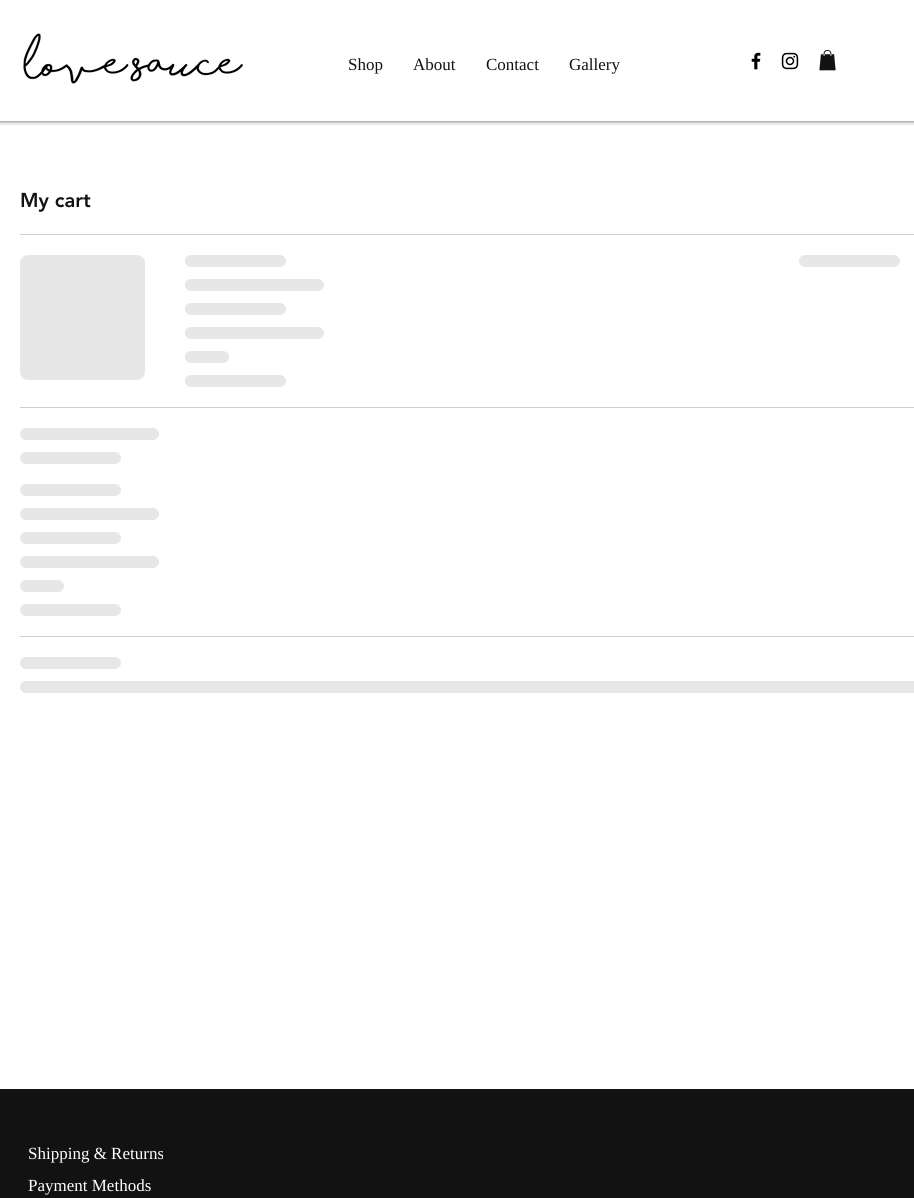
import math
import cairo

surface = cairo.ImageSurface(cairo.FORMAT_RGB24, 914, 1198)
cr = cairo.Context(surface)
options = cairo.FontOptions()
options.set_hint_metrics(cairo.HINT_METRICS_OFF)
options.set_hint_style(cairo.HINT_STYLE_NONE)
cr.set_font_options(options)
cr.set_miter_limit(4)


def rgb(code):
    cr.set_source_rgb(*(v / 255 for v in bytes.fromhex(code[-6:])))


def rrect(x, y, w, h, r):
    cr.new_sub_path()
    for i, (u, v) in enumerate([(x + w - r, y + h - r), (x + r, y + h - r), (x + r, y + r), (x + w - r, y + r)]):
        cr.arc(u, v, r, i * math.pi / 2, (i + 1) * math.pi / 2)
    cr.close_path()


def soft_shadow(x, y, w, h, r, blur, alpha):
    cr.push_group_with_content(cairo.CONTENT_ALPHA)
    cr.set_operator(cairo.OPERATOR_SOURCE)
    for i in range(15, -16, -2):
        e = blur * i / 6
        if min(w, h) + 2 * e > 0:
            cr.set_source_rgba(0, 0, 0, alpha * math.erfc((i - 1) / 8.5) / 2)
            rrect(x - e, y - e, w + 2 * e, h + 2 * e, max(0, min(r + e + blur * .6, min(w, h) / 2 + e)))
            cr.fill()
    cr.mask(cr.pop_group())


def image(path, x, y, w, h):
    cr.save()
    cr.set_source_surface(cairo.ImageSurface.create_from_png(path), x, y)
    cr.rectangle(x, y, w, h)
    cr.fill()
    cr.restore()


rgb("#ffffff")
cr.paint()
cr.save()
cr.rectangle(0, 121, 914, 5)
cr.clip()
rgb("#000000")
soft_shadow(0, 0, 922, 121, 0, 2.5, 0.7)
cr.restore()
image("img/1.png", 23, 33, 220, 51)
image("img/2.png", 751, 52, 10, 18)
image("img/3.png", 781, 52, 18, 18)
image("img/4.png", 819, 50, 17, 21)
rgb("#d0d0d0")
cr.rectangle(20, 234, 894, 1)
cr.fill()
gradient = cairo.LinearGradient(20, 318, 520, 318)
gradient.add_color_stop_rgba(0.25, 0.906, 0.906, 0.906, 1)
gradient.add_color_stop_rgba(0.37, 0.816, 0.816, 0.816, 1)
gradient.add_color_stop_rgba(0.63, 0.906, 0.906, 0.906, 1)
cr.set_source(gradient)
rrect(20, 255, 125, 125, 8)
cr.fill()
gradient = cairo.LinearGradient(185, 261, 589, 261)
gradient.add_color_stop_rgba(0.25, 0.906, 0.906, 0.906, 1)
gradient.add_color_stop_rgba(0.37, 0.816, 0.816, 0.816, 1)
gradient.add_color_stop_rgba(0.63, 0.906, 0.906, 0.906, 1)
cr.set_source(gradient)
rrect(185, 255, 101, 12, 6)
cr.fill()
gradient = cairo.LinearGradient(185, 285, 741, 285)
gradient.add_color_stop_rgba(0.25, 0.906, 0.906, 0.906, 1)
gradient.add_color_stop_rgba(0.37, 0.816, 0.816, 0.816, 1)
gradient.add_color_stop_rgba(0.63, 0.906, 0.906, 0.906, 1)
cr.set_source(gradient)
rrect(185, 279, 139, 12, 6)
cr.fill()
gradient = cairo.LinearGradient(185, 309, 589, 309)
gradient.add_color_stop_rgba(0.25, 0.906, 0.906, 0.906, 1)
gradient.add_color_stop_rgba(0.37, 0.816, 0.816, 0.816, 1)
gradient.add_color_stop_rgba(0.63, 0.906, 0.906, 0.906, 1)
cr.set_source(gradient)
rrect(185, 303, 101, 12, 6)
cr.fill()
gradient = cairo.LinearGradient(185, 333, 741, 333)
gradient.add_color_stop_rgba(0.25, 0.906, 0.906, 0.906, 1)
gradient.add_color_stop_rgba(0.37, 0.816, 0.816, 0.816, 1)
gradient.add_color_stop_rgba(0.63, 0.906, 0.906, 0.906, 1)
cr.set_source(gradient)
rrect(185, 327, 139, 12, 6)
cr.fill()
gradient = cairo.LinearGradient(185, 357, 361, 357)
gradient.add_color_stop_rgba(0.25, 0.906, 0.906, 0.906, 1)
gradient.add_color_stop_rgba(0.37, 0.816, 0.816, 0.816, 1)
gradient.add_color_stop_rgba(0.63, 0.906, 0.906, 0.906, 1)
cr.set_source(gradient)
rrect(185, 351, 44, 12, 6)
cr.fill()
gradient = cairo.LinearGradient(185, 381, 589, 381)
gradient.add_color_stop_rgba(0.25, 0.906, 0.906, 0.906, 1)
gradient.add_color_stop_rgba(0.37, 0.816, 0.816, 0.816, 1)
gradient.add_color_stop_rgba(0.63, 0.906, 0.906, 0.906, 1)
cr.set_source(gradient)
rrect(185, 375, 101, 12, 6)
cr.fill()
gradient = cairo.LinearGradient(799, 261, 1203, 261)
gradient.add_color_stop_rgba(0.25, 0.906, 0.906, 0.906, 1)
gradient.add_color_stop_rgba(0.37, 0.816, 0.816, 0.816, 1)
gradient.add_color_stop_rgba(0.63, 0.906, 0.906, 0.906, 1)
cr.set_source(gradient)
rrect(799, 255, 101, 12, 6)
cr.fill()
rgb("#d0d0d0")
cr.rectangle(20, 407, 894, 1)
cr.fill()
gradient = cairo.LinearGradient(20, 434, 576, 434)
gradient.add_color_stop_rgba(0.25, 0.906, 0.906, 0.906, 1)
gradient.add_color_stop_rgba(0.37, 0.816, 0.816, 0.816, 1)
gradient.add_color_stop_rgba(0.63, 0.906, 0.906, 0.906, 1)
cr.set_source(gradient)
rrect(20, 428, 139, 12, 6)
cr.fill()
gradient = cairo.LinearGradient(20, 458, 424, 458)
gradient.add_color_stop_rgba(0.25, 0.906, 0.906, 0.906, 1)
gradient.add_color_stop_rgba(0.37, 0.816, 0.816, 0.816, 1)
gradient.add_color_stop_rgba(0.63, 0.906, 0.906, 0.906, 1)
cr.set_source(gradient)
rrect(20, 452, 101, 12, 6)
cr.fill()
gradient = cairo.LinearGradient(20, 490, 424, 490)
gradient.add_color_stop_rgba(0.25, 0.906, 0.906, 0.906, 1)
gradient.add_color_stop_rgba(0.37, 0.816, 0.816, 0.816, 1)
gradient.add_color_stop_rgba(0.63, 0.906, 0.906, 0.906, 1)
cr.set_source(gradient)
rrect(20, 484, 101, 12, 6)
cr.fill()
gradient = cairo.LinearGradient(20, 514, 576, 514)
gradient.add_color_stop_rgba(0.25, 0.906, 0.906, 0.906, 1)
gradient.add_color_stop_rgba(0.37, 0.816, 0.816, 0.816, 1)
gradient.add_color_stop_rgba(0.63, 0.906, 0.906, 0.906, 1)
cr.set_source(gradient)
rrect(20, 508, 139, 12, 6)
cr.fill()
gradient = cairo.LinearGradient(20, 538, 424, 538)
gradient.add_color_stop_rgba(0.25, 0.906, 0.906, 0.906, 1)
gradient.add_color_stop_rgba(0.37, 0.816, 0.816, 0.816, 1)
gradient.add_color_stop_rgba(0.63, 0.906, 0.906, 0.906, 1)
cr.set_source(gradient)
rrect(20, 532, 101, 12, 6)
cr.fill()
gradient = cairo.LinearGradient(20, 562, 576, 562)
gradient.add_color_stop_rgba(0.25, 0.906, 0.906, 0.906, 1)
gradient.add_color_stop_rgba(0.37, 0.816, 0.816, 0.816, 1)
gradient.add_color_stop_rgba(0.63, 0.906, 0.906, 0.906, 1)
cr.set_source(gradient)
rrect(20, 556, 139, 12, 6)
cr.fill()
gradient = cairo.LinearGradient(20, 586, 196, 586)
gradient.add_color_stop_rgba(0.25, 0.906, 0.906, 0.906, 1)
gradient.add_color_stop_rgba(0.37, 0.816, 0.816, 0.816, 1)
gradient.add_color_stop_rgba(0.63, 0.906, 0.906, 0.906, 1)
cr.set_source(gradient)
rrect(20, 580, 44, 12, 6)
cr.fill()
gradient = cairo.LinearGradient(20, 610, 424, 610)
gradient.add_color_stop_rgba(0.25, 0.906, 0.906, 0.906, 1)
gradient.add_color_stop_rgba(0.37, 0.816, 0.816, 0.816, 1)
gradient.add_color_stop_rgba(0.63, 0.906, 0.906, 0.906, 1)
cr.set_source(gradient)
rrect(20, 604, 101, 12, 6)
cr.fill()
rgb("#d0d0d0")
cr.rectangle(20, 636, 894, 1)
cr.fill()
gradient = cairo.LinearGradient(20, 663, 424, 663)
gradient.add_color_stop_rgba(0.25, 0.906, 0.906, 0.906, 1)
gradient.add_color_stop_rgba(0.37, 0.816, 0.816, 0.816, 1)
gradient.add_color_stop_rgba(0.63, 0.906, 0.906, 0.906, 1)
cr.set_source(gradient)
rrect(20, 657, 101, 12, 6)
cr.fill()
gradient = cairo.LinearGradient(20, 687, 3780, 687)
gradient.add_color_stop_rgba(0.25, 0.906, 0.906, 0.906, 1)
gradient.add_color_stop_rgba(0.37, 0.816, 0.816, 0.816, 1)
gradient.add_color_stop_rgba(0.63, 0.906, 0.906, 0.906, 1)
cr.set_source(gradient)
rrect(20, 681, 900, 12, 6)
cr.fill()
rgb("#121212")
cr.rectangle(0, 1089, 914, 109)
cr.fill()
cr.select_font_face("Liberation Serif")
cr.set_font_size(17)
for x, y, s in [
    (348, 70, "Shop"),
    (413, 70, "About"),
    (486, 70, "Contact"),
    (569, 70, "Gallery"),
]:
    cr.move_to(x, y)
    cr.show_text(s)
cr.select_font_face("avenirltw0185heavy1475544 Black")
cr.set_font_size(20)
cr.move_to(20, 207)
cr.show_text("My cart")
cr.select_font_face("Liberation Serif")
cr.set_font_size(17)
rgb("#ffffff")
cr.move_to(28, 1159)
cr.show_text("Shipping & Returns")
cr.move_to(28, 1191)
cr.show_text("Payment Methods")
surface.write_to_png("page.png")
